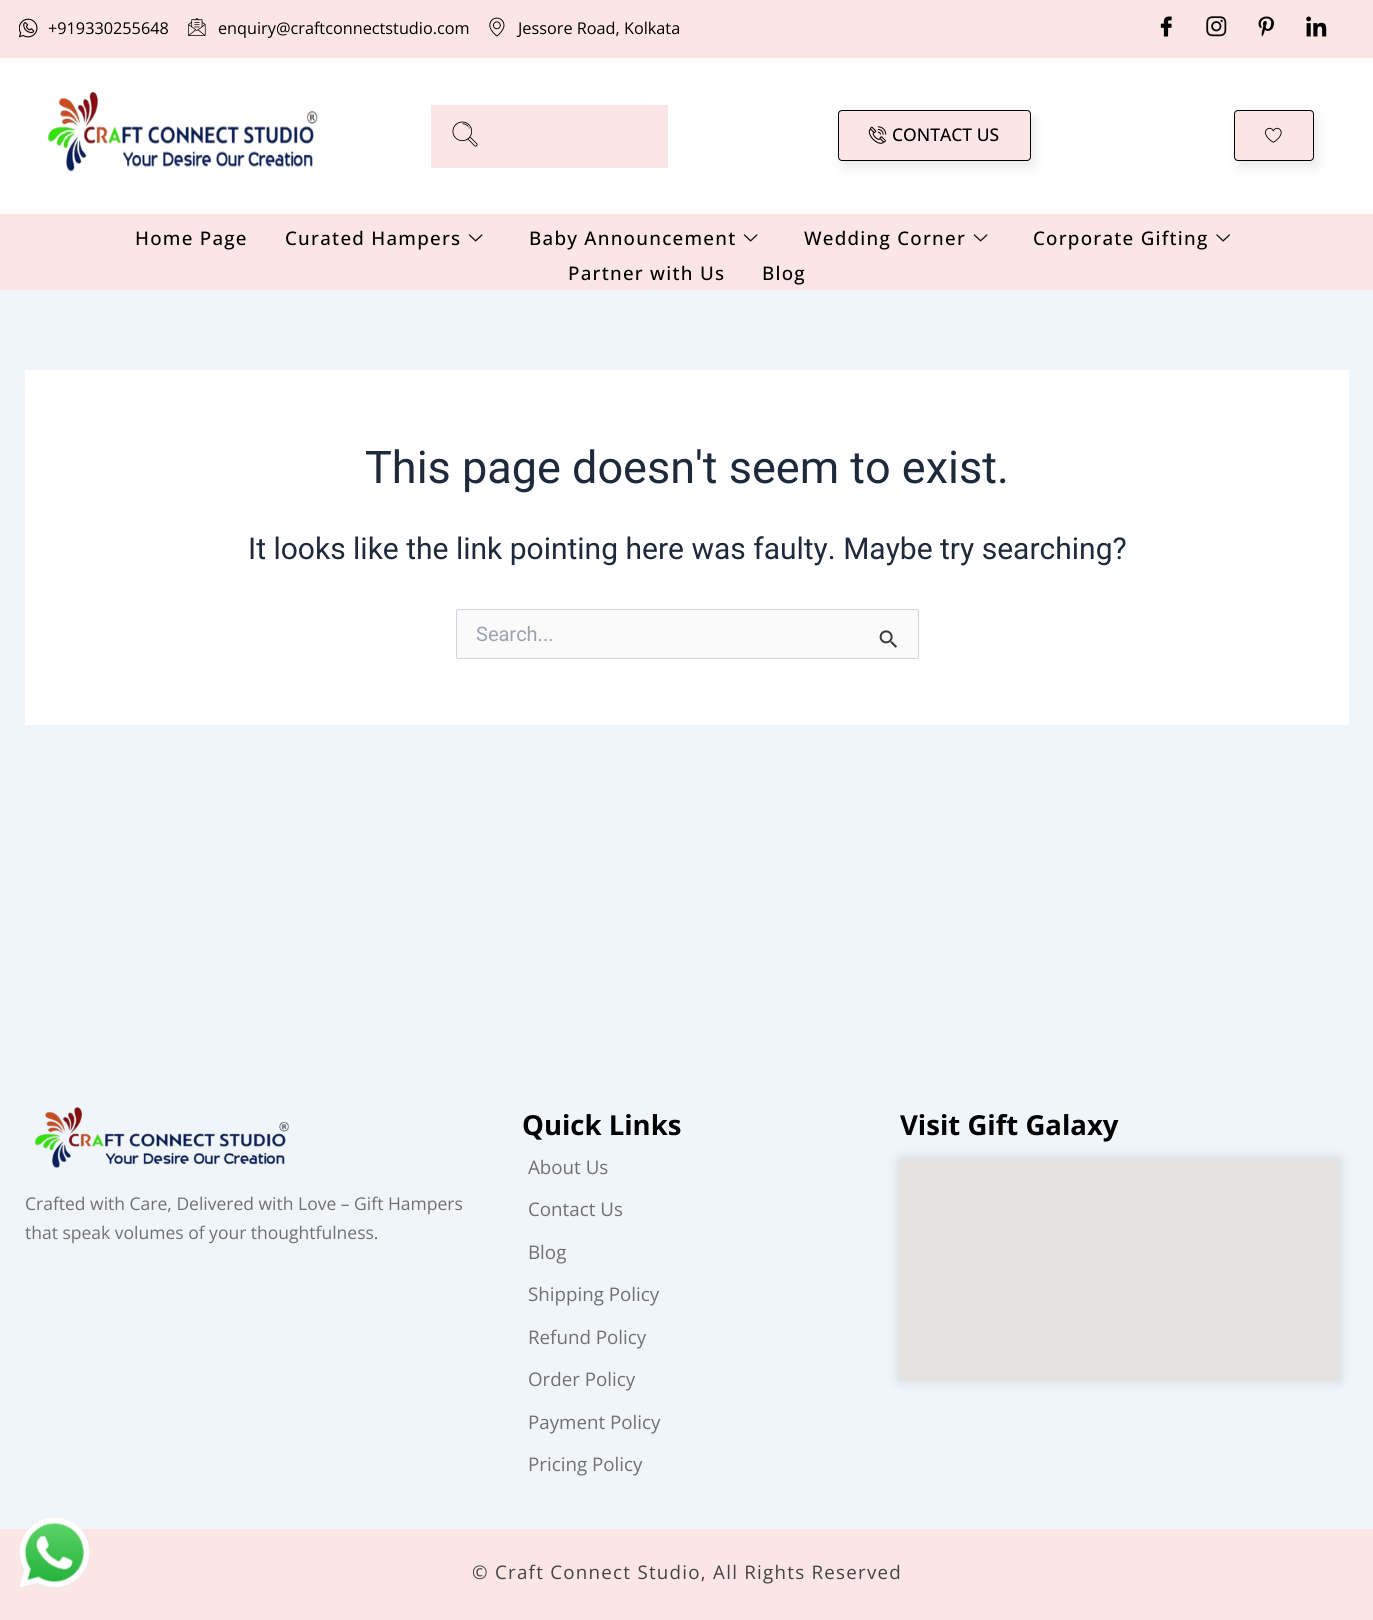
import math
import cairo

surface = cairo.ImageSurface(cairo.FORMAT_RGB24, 1373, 1620)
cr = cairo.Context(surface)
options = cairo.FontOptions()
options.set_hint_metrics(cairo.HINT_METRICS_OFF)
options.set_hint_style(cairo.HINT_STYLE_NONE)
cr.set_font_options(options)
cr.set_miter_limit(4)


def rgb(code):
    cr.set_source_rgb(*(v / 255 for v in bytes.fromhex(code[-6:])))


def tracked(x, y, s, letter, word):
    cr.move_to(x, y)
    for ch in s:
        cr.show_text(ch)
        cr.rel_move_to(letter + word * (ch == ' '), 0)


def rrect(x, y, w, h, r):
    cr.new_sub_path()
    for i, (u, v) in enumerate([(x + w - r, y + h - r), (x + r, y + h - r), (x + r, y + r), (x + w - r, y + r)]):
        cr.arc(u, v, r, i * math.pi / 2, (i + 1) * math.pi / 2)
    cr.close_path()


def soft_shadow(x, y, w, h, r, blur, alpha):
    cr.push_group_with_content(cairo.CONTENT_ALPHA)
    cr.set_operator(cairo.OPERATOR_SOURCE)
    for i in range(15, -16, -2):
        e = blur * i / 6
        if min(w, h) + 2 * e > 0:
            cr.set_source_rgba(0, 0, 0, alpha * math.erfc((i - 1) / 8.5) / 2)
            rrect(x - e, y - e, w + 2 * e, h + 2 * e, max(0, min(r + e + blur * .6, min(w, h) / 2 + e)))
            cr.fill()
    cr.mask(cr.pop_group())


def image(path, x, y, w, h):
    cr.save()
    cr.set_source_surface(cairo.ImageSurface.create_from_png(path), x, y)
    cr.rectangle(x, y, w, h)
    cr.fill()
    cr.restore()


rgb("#f0f5fa")
cr.paint()
rgb("#ffffff")
cr.rectangle(0, 58, 1373, 156)
cr.fill()
rgb("#fce5e5")
cr.rectangle(0, 0, 1373, 58)
cr.fill()
image("img/1.png", 19, 18, 19, 20)
image("img/2.png", 188, 18, 18, 18)
image("img/3.png", 489, 17, 16, 20)
image("img/4.png", 1160, 16, 12, 21)
image("img/5.png", 1206, 16, 21, 21)
image("img/6.png", 1258, 16, 16, 21)
image("img/7.png", 1306, 16, 21, 21)
image("img/8.png", 47, 92, 271, 80)
cr.rectangle(431, 105, 237, 63)
cr.fill()
image("img/9.png", 452, 121, 26, 26)
rgb("#d8d8d8")
soft_shadow(841, 116, 194, 52, 4, 5, 0.5)
rgb("#fce5e5")
rrect(838.5, 110.5, 192, 50, 3.5)
cr.fill_preserve()
rgb("#000000")
cr.set_line_width(1)
cr.stroke()
image("img/10.png", 868, 126, 19, 18)
rgb("#d8d8d8")
soft_shadow(1238, 116, 80, 52, 4, 5, 0.5)
rgb("#fce5e5")
rrect(1234.5, 110.5, 79, 50, 3.5)
cr.fill_preserve()
rgb("#000000")
cr.stroke()
image("img/11.png", 1265, 127, 17, 16)
rgb("#fce5e5")
cr.rectangle(0, 214, 1373, 76)
cr.fill()
image("img/12.png", 468, 234, 15, 8)
image("img/12.png", 743, 234, 15, 8)
image("img/12.png", 973, 234, 15, 8)
image("img/13.png", 1216, 234, 14, 8)
rgb("#ffffff")
cr.rectangle(25, 370, 1324, 355)
cr.fill()
rgb("#fafafa")
rrect(456.5, 609.5, 462, 49, 2)
cr.fill_preserve()
rgb("#d1d5db")
cr.stroke()
image("img/14.png", 879, 630, 18, 18)
image("img/15.png", 34, 1107, 255, 61)
rgb("#aaaaaa")
soft_shadow(900, 1160, 439, 220, 0, 6, 0.5)
rgb("#e5e3df")
cr.rectangle(900, 1160, 439, 220)
cr.fill()
rgb("#fce5e5")
cr.rectangle(0, 1529, 1373, 91)
cr.fill()
image("img/16.png", 19, 1517, 71, 72)
cr.select_font_face("Open Sans")
cr.set_font_size(16.25)
rgb("#000000")
for x, y, s in [
    (48, 34, "+919330255648"),
    (218, 34, "enquiry@craftconnectstudio.com"),
    (518, 34, "Jessore Road, Kolkata"),
]:
    cr.move_to(x, y)
    cr.show_text(s)
cr.select_font_face("Open Sans Medium")
cr.set_font_size(17.5)
cr.move_to(892, 141)
cr.show_text("CONTACT US")
cr.set_font_size(18.75)
for x, y, s in [
    (135, 245, "Home Page"),
    (285, 245, "Curated Hampers"),
    (529, 245, "Baby Announcement"),
    (804, 245, "Wedding Corner"),
    (1033, 245, "Corporate Gifting"),
    (568, 280, "Partner with Us"),
    (762, 280, "Blog"),
]:
    tracked(x, y, s, 1.25, 0)
cr.select_font_face("Roboto")
cr.set_font_size(45)
rgb("#1e293b")
cr.move_to(365, 483)
cr.show_text("This page doesn't seem to exist.")
cr.set_font_size(30)
cr.move_to(248, 559)
cr.show_text("It looks like the link pointing here was faulty. Maybe try searching?")
cr.set_font_size(20)
rgb("#9ca3af")
cr.move_to(476, 641)
cr.show_text("Search...")
cr.select_font_face("Open Sans")
cr.set_font_size(17.5)
rgb("#707070")
cr.move_to(25, 1210)
cr.show_text("Crafted with Care, Delivered with Love – Gift Hampers")
cr.move_to(25, 1239)
cr.show_text("that speak volumes of your thoughtfulness.")
cr.select_font_face("Open Sans", cairo.FONT_SLANT_NORMAL, cairo.FONT_WEIGHT_BOLD)
cr.set_font_size(27.5)
rgb("#000000")
cr.move_to(522, 1135)
cr.show_text("Quick Links")
cr.select_font_face("Open Sans")
cr.set_font_size(18.75)
rgb("#707070")
for x, y, s in [
    (528, 1174, "About Us"),
    (528, 1216, "Contact Us"),
    (528, 1259, "Blog"),
    (528, 1301, "Shipping Policy"),
    (528, 1344, "Refund Policy"),
    (528, 1386, "Order Policy"),
    (528, 1429, "Payment Policy"),
    (528, 1471, "Pricing Policy"),
]:
    cr.move_to(x, y)
    cr.show_text(s)
cr.select_font_face("Open Sans", cairo.FONT_SLANT_NORMAL, cairo.FONT_WEIGHT_BOLD)
cr.set_font_size(27.5)
rgb("#000000")
cr.move_to(900, 1135)
cr.show_text("Visit Gift Galaxy")
cr.select_font_face("Open Sans")
cr.set_font_size(18.75)
rgb("#434343")
tracked(472, 1579, "© Craft Connect Studio, All Rights Reserved", 1.25, 0)
surface.write_to_png("page.png")
